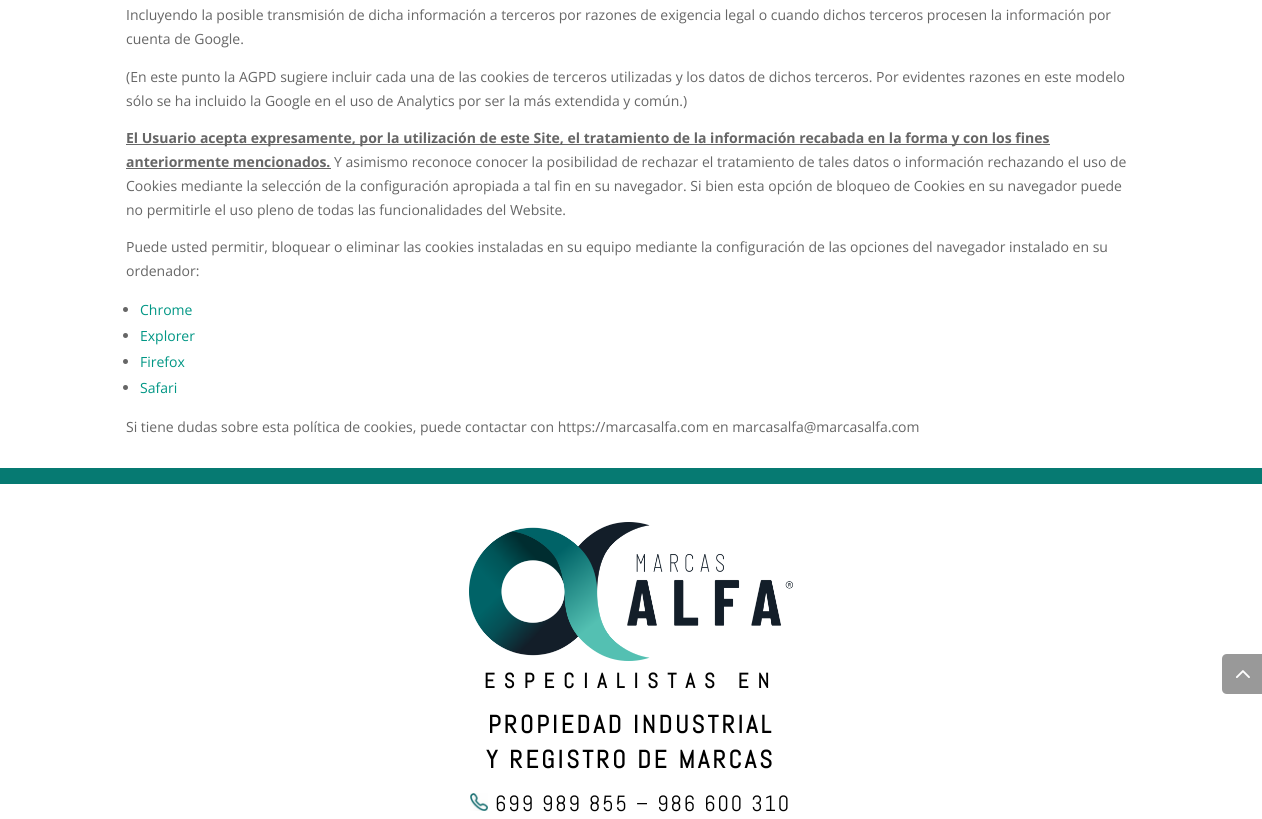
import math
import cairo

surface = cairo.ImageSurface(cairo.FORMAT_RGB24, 1262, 819)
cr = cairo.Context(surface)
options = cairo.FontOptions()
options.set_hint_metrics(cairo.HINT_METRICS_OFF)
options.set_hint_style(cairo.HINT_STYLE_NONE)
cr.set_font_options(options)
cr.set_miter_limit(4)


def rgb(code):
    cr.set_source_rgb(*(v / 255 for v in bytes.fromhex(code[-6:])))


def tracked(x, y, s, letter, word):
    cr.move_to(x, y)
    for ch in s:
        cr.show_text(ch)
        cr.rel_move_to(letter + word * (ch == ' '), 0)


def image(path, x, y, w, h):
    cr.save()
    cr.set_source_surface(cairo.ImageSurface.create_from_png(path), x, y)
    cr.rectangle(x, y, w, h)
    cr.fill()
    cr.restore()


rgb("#ffffff")
cr.paint()
for x, y, w, h, color in [
    (0, 468, 1262, 16, "#067a72"),
    (126, 144, 924, 1, "#666666"),
    (126, 168, 205, 1, "#666666"),
]:
    rgb(color)
    cr.rectangle(x, y, w, h)
    cr.fill()
cr.arc(125.5, 309.5, 2.5, 0, 2 * math.pi)
cr.fill()
cr.arc(125.5, 335.5, 2.5, 0, 2 * math.pi)
cr.fill()
cr.arc(125.5, 361.5, 2.5, 0, 2 * math.pi)
cr.fill()
cr.arc(125.5, 387.5, 2.5, 0, 2 * math.pi)
cr.fill()
image("img/1.png", 469, 522, 324, 139)
image("img/2.png", 470, 793, 18, 18)
rgb("#999999")
cr.new_path()
cr.move_to(1227, 654)
cr.line_to(1262, 654)
cr.line_to(1262, 694)
cr.line_to(1227, 694)
cr.curve_to(1224, 694, 1222, 692, 1222, 689)
cr.line_to(1222, 659)
cr.curve_to(1222, 656, 1224, 654, 1227, 654)
cr.close_path()
cr.fill()
image("img/3.png", 1236, 670, 14, 8)
cr.select_font_face("Open Sans")
cr.set_font_size(14)
rgb("#666666")
for x, y, s in [
    (126, 20, "Incluyendo la posible transmisión de dicha información a terceros por razones de exigencia legal o cuando dichos terceros procesen la información por"),
    (126, 44, "cuenta de Google."),
    (126, 82, "(En este punto la AGPD sugiere incluir cada una de las cookies de terceros utilizadas y los datos de dichos terceros. Por evidentes razones en este modelo"),
    (126, 106, "sólo se ha incluido la Google en el uso de Analytics por ser la más extendida y común.)"),
]:
    cr.move_to(x, y)
    cr.show_text(s)
cr.select_font_face("Open Sans", cairo.FONT_SLANT_NORMAL, cairo.FONT_WEIGHT_BOLD)
cr.move_to(126, 143)
cr.show_text("El Usuario acepta expresamente, por la utilización de este Site, el tratamiento de la información recabada en la forma y con los fines")
cr.move_to(126, 167)
cr.show_text("anteriormente mencionados.")
cr.select_font_face("Open Sans")
for x, y, s in [
    (334, 167, "Y asimismo reconoce conocer la posibilidad de rechazar el tratamiento de tales datos o información rechazando el uso de"),
    (126, 191, "Cookies mediante la selección de la configuración apropiada a tal fin en su navegador. Si bien esta opción de bloqueo de Cookies en su navegador puede"),
    (126, 215, "no permitirle el uso pleno de todas las funcionalidades del Website."),
    (126, 252, "Puede usted permitir, bloquear o eliminar las cookies instaladas en su equipo mediante la configuración de las opciones del navegador instalado en su"),
    (126, 276, "ordenador:"),
]:
    cr.move_to(x, y)
    cr.show_text(s)
rgb("#009684")
for x, y, s in [
    (140, 315, "Chrome"),
    (140, 341, "Explorer"),
    (140, 367, "Firefox"),
    (140, 393, "Safari"),
]:
    cr.move_to(x, y)
    cr.show_text(s)
rgb("#666666")
cr.move_to(126, 432)
cr.show_text("Si tiene dudas sobre esta política de cookies, puede contactar con https://marcasalfa.com en marcasalfa@marcasalfa.com")
cr.select_font_face("Abel", cairo.FONT_SLANT_NORMAL, cairo.FONT_WEIGHT_BOLD)
cr.set_font_size(21)
rgb("#000000")
tracked(484, 688, "ESPECIALISTAS EN", 9, 0)
cr.set_font_size(25)
tracked(488, 733, "PROPIEDAD INDUSTRIAL", 3, 0)
tracked(486, 768, "Y REGISTRO DE MARCAS", 3, 0)
cr.select_font_face("Abel")
cr.set_font_size(22)
tracked(495, 811, "699 989 855 – 986 600 310", 2, 0)
surface.write_to_png("page.png")
